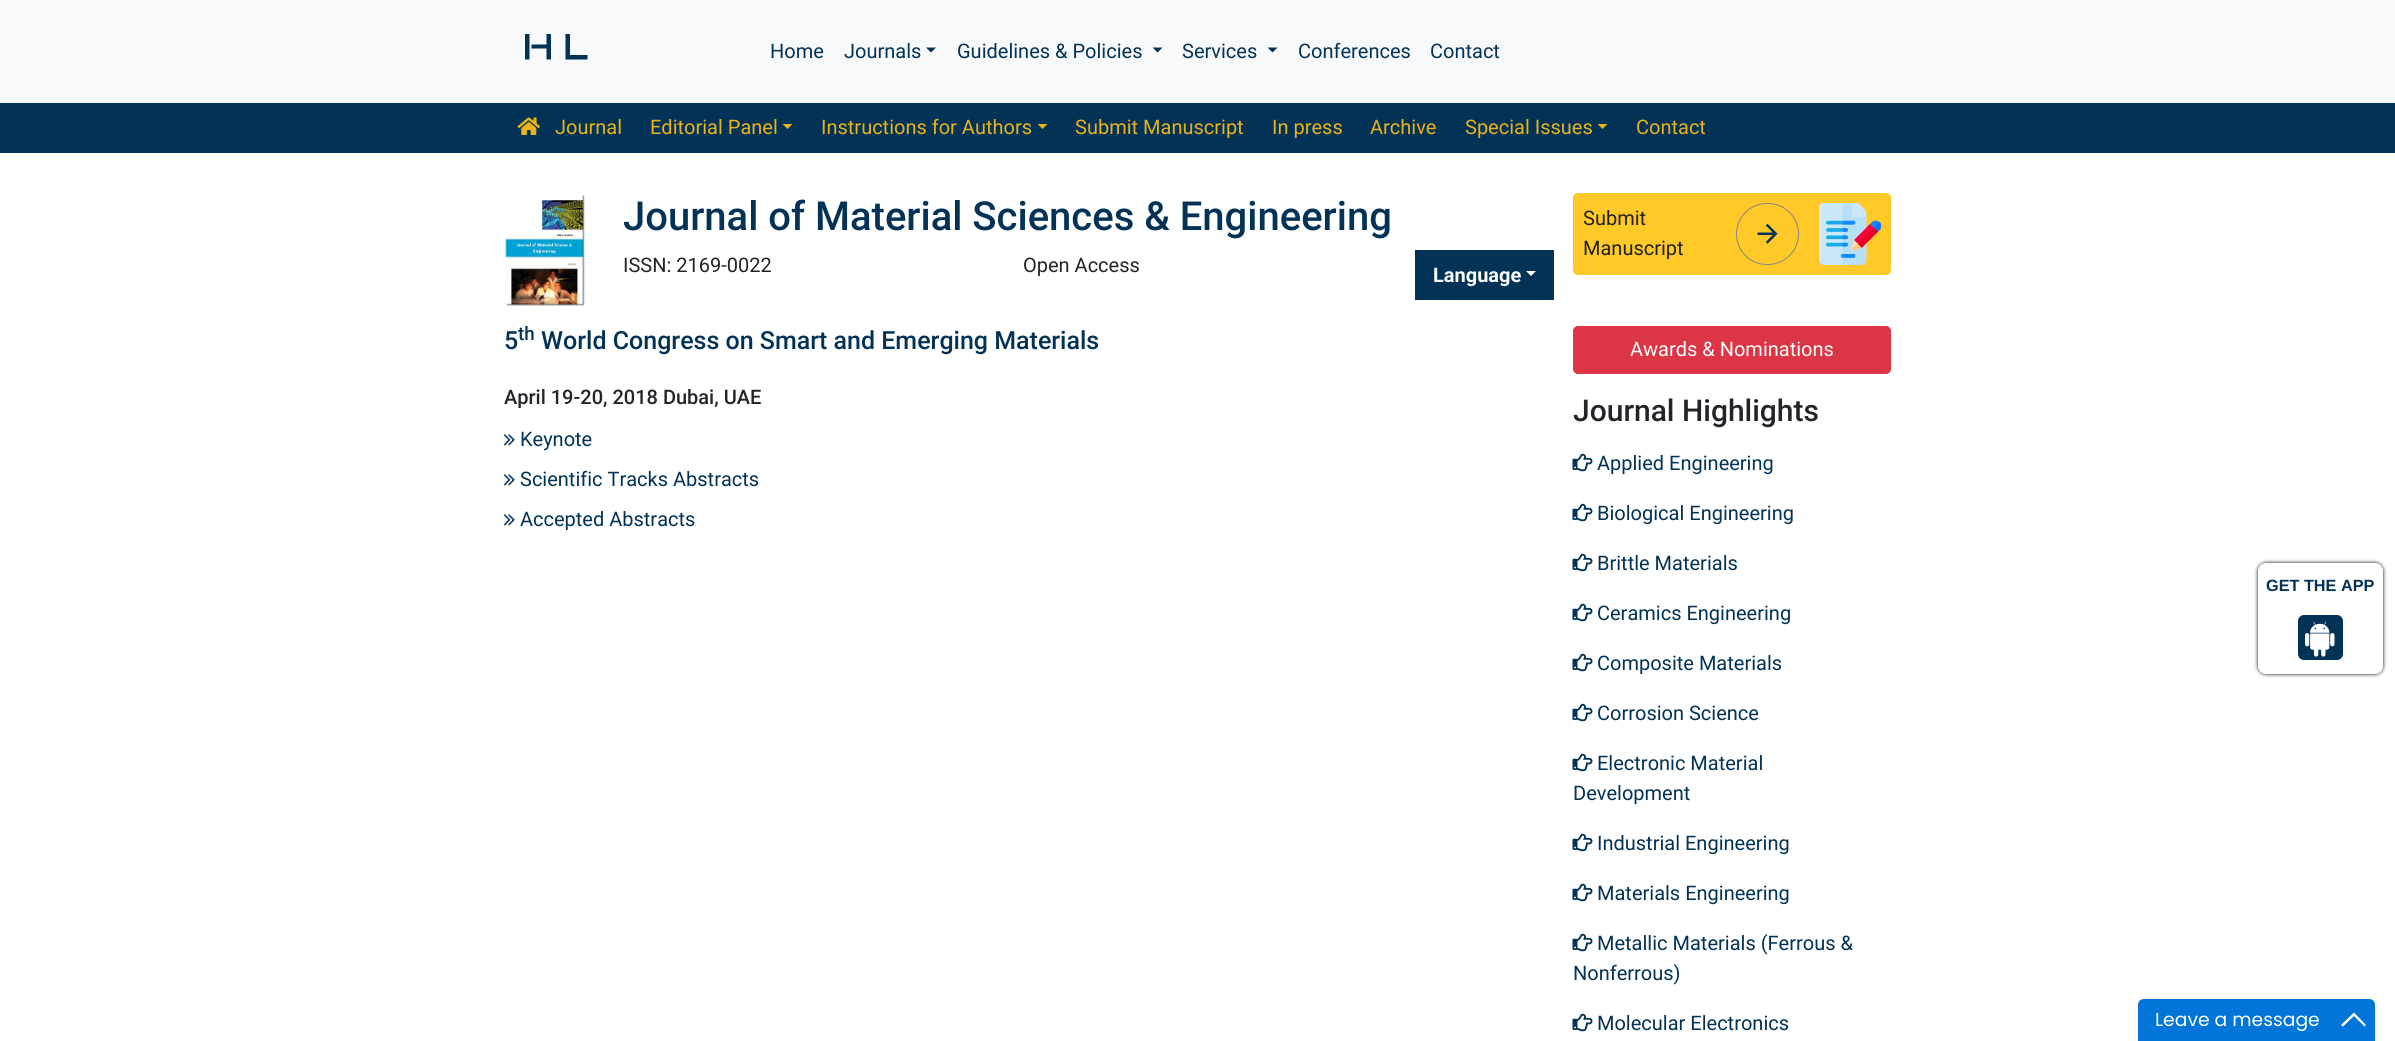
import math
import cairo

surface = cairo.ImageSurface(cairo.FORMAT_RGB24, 2395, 1041)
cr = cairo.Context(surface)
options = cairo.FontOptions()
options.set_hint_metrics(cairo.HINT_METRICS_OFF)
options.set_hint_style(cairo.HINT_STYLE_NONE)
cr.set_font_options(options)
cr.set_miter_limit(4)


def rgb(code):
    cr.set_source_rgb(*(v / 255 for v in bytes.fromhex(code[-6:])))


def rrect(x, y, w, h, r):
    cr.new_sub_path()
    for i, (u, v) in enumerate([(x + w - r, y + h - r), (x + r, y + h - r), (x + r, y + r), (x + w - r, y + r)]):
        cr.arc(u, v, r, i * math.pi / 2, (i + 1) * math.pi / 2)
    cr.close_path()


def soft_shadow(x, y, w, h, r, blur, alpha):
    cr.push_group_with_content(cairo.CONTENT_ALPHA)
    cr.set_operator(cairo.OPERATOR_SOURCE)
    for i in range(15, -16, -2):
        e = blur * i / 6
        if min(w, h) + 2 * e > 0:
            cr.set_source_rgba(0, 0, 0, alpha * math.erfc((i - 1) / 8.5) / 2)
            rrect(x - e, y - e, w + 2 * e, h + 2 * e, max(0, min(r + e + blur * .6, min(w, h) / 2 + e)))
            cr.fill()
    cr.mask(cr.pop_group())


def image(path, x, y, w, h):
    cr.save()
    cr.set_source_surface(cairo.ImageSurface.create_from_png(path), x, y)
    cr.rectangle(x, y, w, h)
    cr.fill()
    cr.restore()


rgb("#ffffff")
cr.paint()
rgb("#f8f9fa")
cr.rectangle(0, 0, 2395, 103)
cr.fill()
rgb("#023256")
cr.new_path()
cr.move_to(529.5, 59.5)
cr.line_to(525, 59.5)
cr.line_to(525, 34)
cr.line_to(529.5, 34)
cr.close_path()
cr.move_to(551, 59.5)
cr.line_to(546.5, 59.5)
cr.line_to(546.5, 48.5)
cr.line_to(531.5, 48.5)
cr.line_to(531.5, 44.5)
cr.line_to(546.5, 44.5)
cr.line_to(546.5, 34)
cr.line_to(551, 34)
cr.close_path()
cr.move_to(587.5, 59.5)
cr.line_to(565.5, 59.5)
cr.line_to(565.5, 34)
cr.line_to(570, 34)
cr.line_to(570, 55)
cr.line_to(587.5, 55)
cr.close_path()
cr.fill()
cr.new_path()
cr.move_to(926, 47.5)
cr.line_to(936, 47.5)
cr.line_to(931, 52.5)
cr.close_path()
cr.fill()
cr.new_path()
cr.move_to(1152.5, 47.5)
cr.line_to(1162.5, 47.5)
cr.line_to(1157.5, 52.5)
cr.close_path()
cr.fill()
cr.new_path()
cr.move_to(1267.5, 47.5)
cr.line_to(1277.5, 47.5)
cr.line_to(1272.5, 52.5)
cr.close_path()
cr.fill()
cr.rectangle(0, 103, 2395, 50)
cr.fill()
image("img/1.png", 517, 117, 23, 18)
rgb("#e8b31f")
cr.new_path()
cr.move_to(782.5, 124)
cr.line_to(792.5, 124)
cr.line_to(787.5, 129)
cr.close_path()
cr.fill()
cr.new_path()
cr.move_to(1037.5, 124)
cr.line_to(1047.5, 124)
cr.line_to(1042.5, 129)
cr.close_path()
cr.fill()
cr.new_path()
cr.move_to(1597.5, 124)
cr.line_to(1607.5, 124)
cr.line_to(1602.5, 129)
cr.close_path()
cr.fill()
image("img/2.png", 504, 194, 81, 112)
rgb("#023256")
cr.rectangle(1415, 250, 139, 50)
cr.fill()
rgb("#ffffff")
cr.new_path()
cr.move_to(1526, 271)
cr.line_to(1536, 271)
cr.line_to(1531, 276)
cr.close_path()
cr.fill()
rgb("#ffca28")
rrect(1573, 193, 318, 82, 5)
cr.fill()
rrect(1736.5, 203.5, 62, 61, 30.5)
rgb("#858585")
cr.set_line_width(1)
cr.stroke()
image("img/3.png", 1757, 223, 21, 21)
image("img/4.png", 1819, 203, 62, 62)
image("img/5.png", 503, 434, 12, 12)
image("img/5.png", 503, 474, 12, 12)
image("img/5.png", 503, 514, 12, 12)
rgb("#dc3545")
rrect(1573.5, 326.5, 317, 47, 4.5)
cr.fill_preserve()
cr.stroke()
image("img/6.png", 1572, 453, 21, 19)
image("img/6.png", 1572, 503, 21, 19)
image("img/6.png", 1572, 553, 21, 19)
image("img/6.png", 1572, 603, 21, 19)
image("img/6.png", 1572, 653, 21, 19)
image("img/6.png", 1572, 703, 21, 19)
image("img/6.png", 1572, 753, 21, 19)
image("img/6.png", 1572, 833, 21, 19)
image("img/6.png", 1572, 883, 21, 19)
image("img/6.png", 1572, 933, 21, 19)
image("img/6.png", 1572, 1013, 21, 19)
rgb("#000000")
soft_shadow(2258, 563, 125, 111, 8, 2, 1)
rgb("#ffffff")
rrect(2258.5, 563.5, 124, 110, 7.5)
cr.fill_preserve()
cr.stroke()
rgb("#023256")
rrect(2298, 615, 45, 45, 6)
cr.fill()
image("img/7.png", 2305, 621, 30, 36)
rgb("#0275d8")
cr.new_path()
cr.move_to(2144, 999)
cr.line_to(2369, 999)
cr.curve_to(2372.5, 999, 2375, 1001.5, 2375, 1005)
cr.line_to(2375, 1041)
cr.line_to(2138, 1041)
cr.line_to(2138, 1005)
cr.curve_to(2138, 1001.5, 2140.5, 999, 2144, 999)
cr.close_path()
cr.fill()
rgb("#ffffff")
cr.new_path()
cr.move_to(2354, 1012.5)
cr.line_to(2366, 1025)
cr.line_to(2364.5, 1026.5)
cr.line_to(2354, 1016)
cr.line_to(2343, 1026.5)
cr.line_to(2341, 1025)
cr.close_path()
cr.fill()
cr.select_font_face("Roboto")
cr.set_font_size(20)
rgb("#023256")
for x, y, s in [
    (770, 58, "Home"),
    (844, 58, "Journals"),
    (957, 58, "Guidelines & Policies"),
    (1182, 58, "Services"),
    (1298, 58, "Conferences"),
    (1430, 58, "Contact"),
]:
    cr.move_to(x, y)
    cr.show_text(s)
rgb("#e8b31f")
for x, y, s in [
    (555, 134, "Journal"),
    (650, 134, "Editorial Panel"),
    (821, 134, "Instructions for Authors"),
    (1075, 134, "Submit Manuscript"),
    (1272, 134, "In press"),
    (1370, 134, "Archive"),
    (1465, 134, "Special Issues"),
    (1636, 134, "Contact"),
]:
    cr.move_to(x, y)
    cr.show_text(s)
cr.select_font_face("Roboto Medium")
cr.set_font_size(40)
rgb("#023256")
cr.move_to(623, 230)
cr.show_text("Journal of Material Sciences & Engineering")
cr.select_font_face("Roboto")
cr.set_font_size(20)
rgb("#212529")
cr.move_to(623, 272)
cr.show_text("ISSN: 2169-0022")
cr.move_to(1023, 272)
cr.show_text("Open Access")
cr.select_font_face("Roboto", cairo.FONT_SLANT_NORMAL, cairo.FONT_WEIGHT_BOLD)
rgb("#ffffff")
cr.move_to(1433, 282)
cr.show_text("Language")
cr.select_font_face("Roboto")
rgb("#212121")
cr.move_to(1583, 225)
cr.show_text("Submit")
cr.move_to(1583, 255)
cr.show_text("Manuscript")
cr.select_font_face("Roboto Medium")
cr.set_font_size(25)
rgb("#023256")
cr.move_to(504, 349)
cr.show_text("5")
cr.set_font_size(18.75)
cr.move_to(518, 340)
cr.show_text("th")
cr.set_font_size(25)
cr.move_to(541, 349)
cr.show_text("World Congress on Smart and Emerging Materials")
cr.set_font_size(20)
rgb("#212529")
cr.move_to(504, 404)
cr.show_text("April 19-20, 2018 Dubai, UAE")
cr.select_font_face("Roboto")
rgb("#023256")
for x, y, s in [
    (520, 446, "Keynote"),
    (520, 486, "Scientific Tracks Abstracts"),
    (520, 526, "Accepted Abstracts"),
]:
    cr.move_to(x, y)
    cr.show_text(s)
rgb("#ffffff")
cr.move_to(1630, 356)
cr.show_text("Awards & Nominations")
cr.select_font_face("Roboto Medium")
cr.set_font_size(30)
rgb("#212529")
cr.move_to(1573, 421)
cr.show_text("Journal Highlights")
cr.select_font_face("Roboto")
cr.set_font_size(20)
rgb("#023256")
for x, y, s in [
    (1597, 470, "Applied Engineering"),
    (1597, 520, "Biological Engineering"),
    (1597, 570, "Brittle Materials"),
    (1597, 620, "Ceramics Engineering"),
    (1597, 670, "Composite Materials"),
    (1597, 720, "Corrosion Science"),
    (1597, 770, "Electronic Material"),
    (1573, 800, "Development"),
    (1597, 850, "Industrial Engineering"),
    (1597, 900, "Materials Engineering"),
    (1597, 950, "Metallic Materials (Ferrous &"),
    (1573, 980, "Nonferrous)"),
    (1597, 1030, "Molecular Electronics"),
]:
    cr.move_to(x, y)
    cr.show_text(s)
cr.select_font_face("Liberation Sans", cairo.FONT_SLANT_NORMAL, cairo.FONT_WEIGHT_BOLD)
cr.set_font_size(16.25)
cr.move_to(2266, 591)
cr.show_text("GET THE APP")
cr.select_font_face("Poppins")
cr.set_font_size(18.75)
rgb("#ffffff")
cr.move_to(2155, 1026)
cr.show_text("Leave a message")
surface.write_to_png("page.png")
